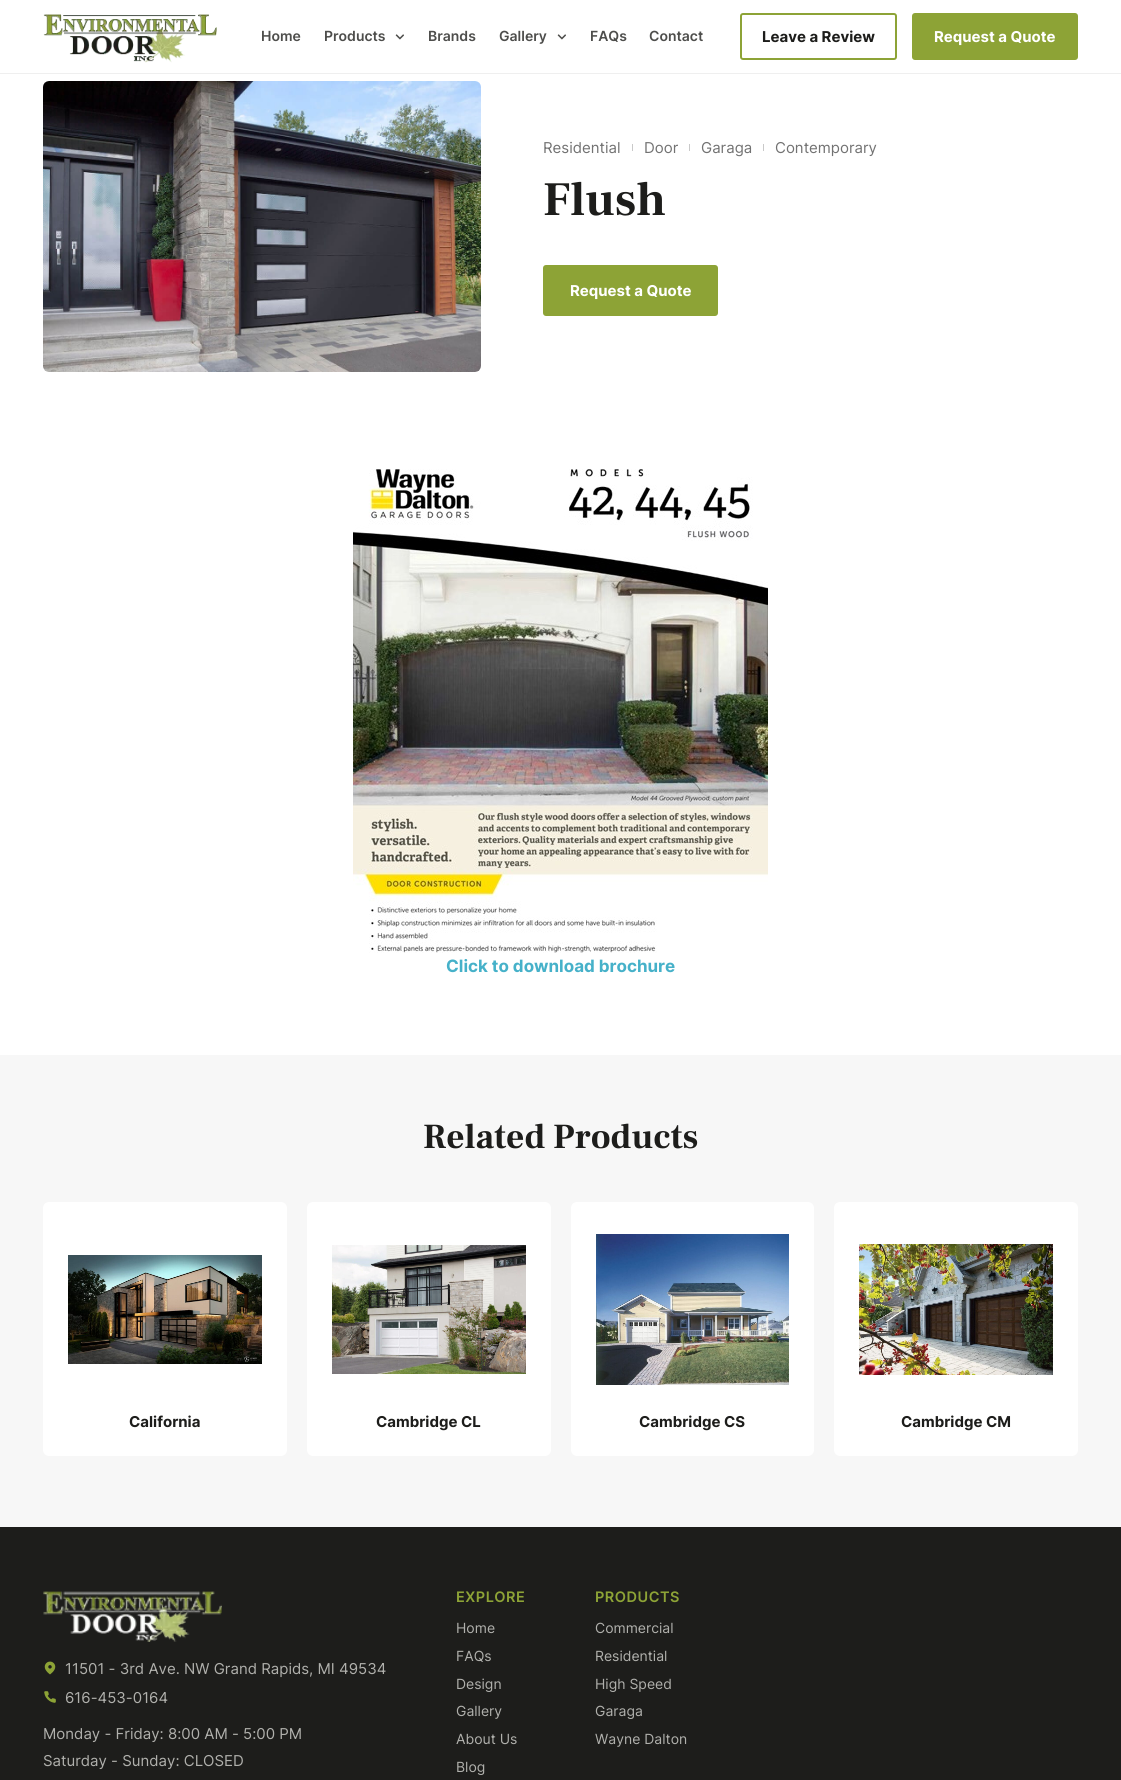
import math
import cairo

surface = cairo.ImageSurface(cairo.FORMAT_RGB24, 1121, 1780)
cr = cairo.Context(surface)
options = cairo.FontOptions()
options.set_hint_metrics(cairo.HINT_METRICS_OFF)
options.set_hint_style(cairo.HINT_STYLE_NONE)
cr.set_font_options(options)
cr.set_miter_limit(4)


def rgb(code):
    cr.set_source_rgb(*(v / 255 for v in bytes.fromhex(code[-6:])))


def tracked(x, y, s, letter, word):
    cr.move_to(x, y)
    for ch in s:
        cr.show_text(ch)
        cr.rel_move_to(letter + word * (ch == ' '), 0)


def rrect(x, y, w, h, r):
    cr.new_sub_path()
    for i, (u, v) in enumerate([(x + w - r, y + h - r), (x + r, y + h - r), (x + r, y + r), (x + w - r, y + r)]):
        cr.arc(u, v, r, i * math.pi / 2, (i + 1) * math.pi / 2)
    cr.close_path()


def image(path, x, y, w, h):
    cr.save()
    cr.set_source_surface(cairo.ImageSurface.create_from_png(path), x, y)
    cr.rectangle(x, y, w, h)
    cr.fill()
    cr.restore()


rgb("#ffffff")
cr.paint()
rgb("#efefef")
cr.rectangle(0, 73, 1121, 1)
cr.fill()
image("img/1.png", 43, 14, 174, 49)
image("img/2.png", 395, 34, 9, 6)
image("img/2.png", 557, 34, 9, 6)
rrect(741, 14, 155, 45, 2)
rgb("#8da336")
cr.stroke()
rrect(913, 14, 164, 45, 2)
cr.fill_preserve()
cr.stroke()
image("img/3.png", 43, 81, 438, 291)
for x, y, w, h, color in [
    (632, 144, 1, 7, "#c9c9c9"),
    (689, 144, 1, 7, "#c9c9c9"),
    (763, 144, 1, 7, "#c9c9c9"),
]:
    rgb(color)
    cr.rectangle(x, y, w, h)
    cr.fill()
rgb("#8da336")
rrect(544, 266, 173, 49, 2)
cr.fill_preserve()
cr.stroke()
image("img/4.png", 353, 469, 415, 484)
rgb("#f7f7f7")
cr.rectangle(0, 1055, 1121, 472)
cr.fill()
rgb("#ffffff")
rrect(43, 1202, 244, 254, 6)
cr.fill()
image("img/5.png", 68, 1255, 194, 109)
rrect(307, 1202, 244, 254, 6)
cr.fill()
image("img/6.png", 332, 1245, 194, 129)
rrect(571, 1202, 243, 254, 6)
cr.fill()
image("img/7.png", 596, 1234, 193, 151)
rrect(834, 1202, 244, 254, 6)
cr.fill()
image("img/8.png", 859, 1244, 194, 131)
rgb("#1d1d1b")
cr.rectangle(0, 1527, 1121, 253)
cr.fill()
image("img/9.png", 43, 1591, 179, 51)
image("img/10.png", 44, 1661, 12, 14)
image("img/11.png", 44, 1691, 12, 12)
cr.select_font_face("Inter SemiBold")
cr.set_font_size(14)
rgb("#4e4e4c")
for x, y, s in [
    (261, 41, "Home"),
    (324, 41, "Products"),
    (428, 41, "Brands"),
    (499, 41, "Gallery"),
    (590, 41, "FAQs"),
    (649, 41, "Contact"),
]:
    cr.move_to(x, y)
    cr.show_text(s)
cr.select_font_face("Inter", cairo.FONT_SLANT_NORMAL, cairo.FONT_WEIGHT_BOLD)
cr.set_font_size(15)
rgb("#1d1d1b")
cr.move_to(762, 42)
cr.show_text("Leave a Review")
rgb("#ffffff")
cr.move_to(934, 42)
cr.show_text("Request a Quote")
cr.select_font_face("Inter")
rgb("#727272")
for x, y, s in [
    (543, 153, "Residential"),
    (644, 153, "Door"),
    (701, 153, "Garaga"),
    (775, 153, "Contemporary"),
]:
    cr.move_to(x, y)
    cr.show_text(s)
cr.select_font_face("Frank Ruhl Libre", cairo.FONT_SLANT_NORMAL, cairo.FONT_WEIGHT_BOLD)
cr.set_font_size(48)
rgb("#1d1d1b")
cr.move_to(543, 215)
cr.show_text("Flush")
cr.select_font_face("Inter", cairo.FONT_SLANT_NORMAL, cairo.FONT_WEIGHT_BOLD)
cr.set_font_size(15)
rgb("#ffffff")
cr.move_to(570, 296)
cr.show_text("Request a Quote")
cr.set_font_size(17)
rgb("#46b1c9")
cr.move_to(446, 972)
cr.show_text("Click to download brochure")
cr.select_font_face("Frank Ruhl Libre", cairo.FONT_SLANT_NORMAL, cairo.FONT_WEIGHT_BOLD)
cr.set_font_size(35.25)
rgb("#1d1d1b")
cr.move_to(423, 1148)
cr.show_text("Related Products")
cr.select_font_face("Inter", cairo.FONT_SLANT_NORMAL, cairo.FONT_WEIGHT_BOLD)
cr.set_font_size(15)
for x, y, s in [
    (129, 1427, "California"),
    (376, 1427, "Cambridge CL"),
    (639, 1427, "Cambridge CS"),
    (901, 1427, "Cambridge CM"),
]:
    cr.move_to(x, y)
    cr.show_text(s)
cr.select_font_face("Inter")
rgb("#b0b0ac")
for x, y, s in [
    (65, 1674, "11501 - 3rd Ave. NW Grand Rapids, MI 49534"),
    (65, 1703, "616-453-0164"),
    (43, 1739, "Monday - Friday: 8:00 AM - 5:00 PM"),
    (43, 1766, "Saturday - Sunday: CLOSED"),
]:
    cr.move_to(x, y)
    cr.show_text(s)
cr.select_font_face("Inter SemiBold")
cr.set_font_size(14.5)
rgb("#8da336")
tracked(456, 1602, "EXPLORE", 0.5, 0)
cr.select_font_face("Inter")
cr.set_font_size(14)
rgb("#b0b0ac")
for x, y, s in [
    (456, 1633, "Home"),
    (456, 1661, "FAQs"),
    (456, 1689, "Design"),
    (456, 1716, "Gallery"),
    (456, 1744, "About Us"),
    (456, 1772, "Blog"),
]:
    cr.move_to(x, y)
    cr.show_text(s)
cr.select_font_face("Inter SemiBold")
cr.set_font_size(14.5)
rgb("#8da336")
tracked(595, 1602, "PRODUCTS", 0.5, 0)
cr.select_font_face("Inter")
cr.set_font_size(14)
rgb("#b0b0ac")
for x, y, s in [
    (595, 1633, "Commercial"),
    (595, 1661, "Residential"),
    (595, 1689, "High Speed"),
    (595, 1716, "Garaga"),
    (595, 1744, "Wayne Dalton"),
]:
    cr.move_to(x, y)
    cr.show_text(s)
surface.write_to_png("page.png")
